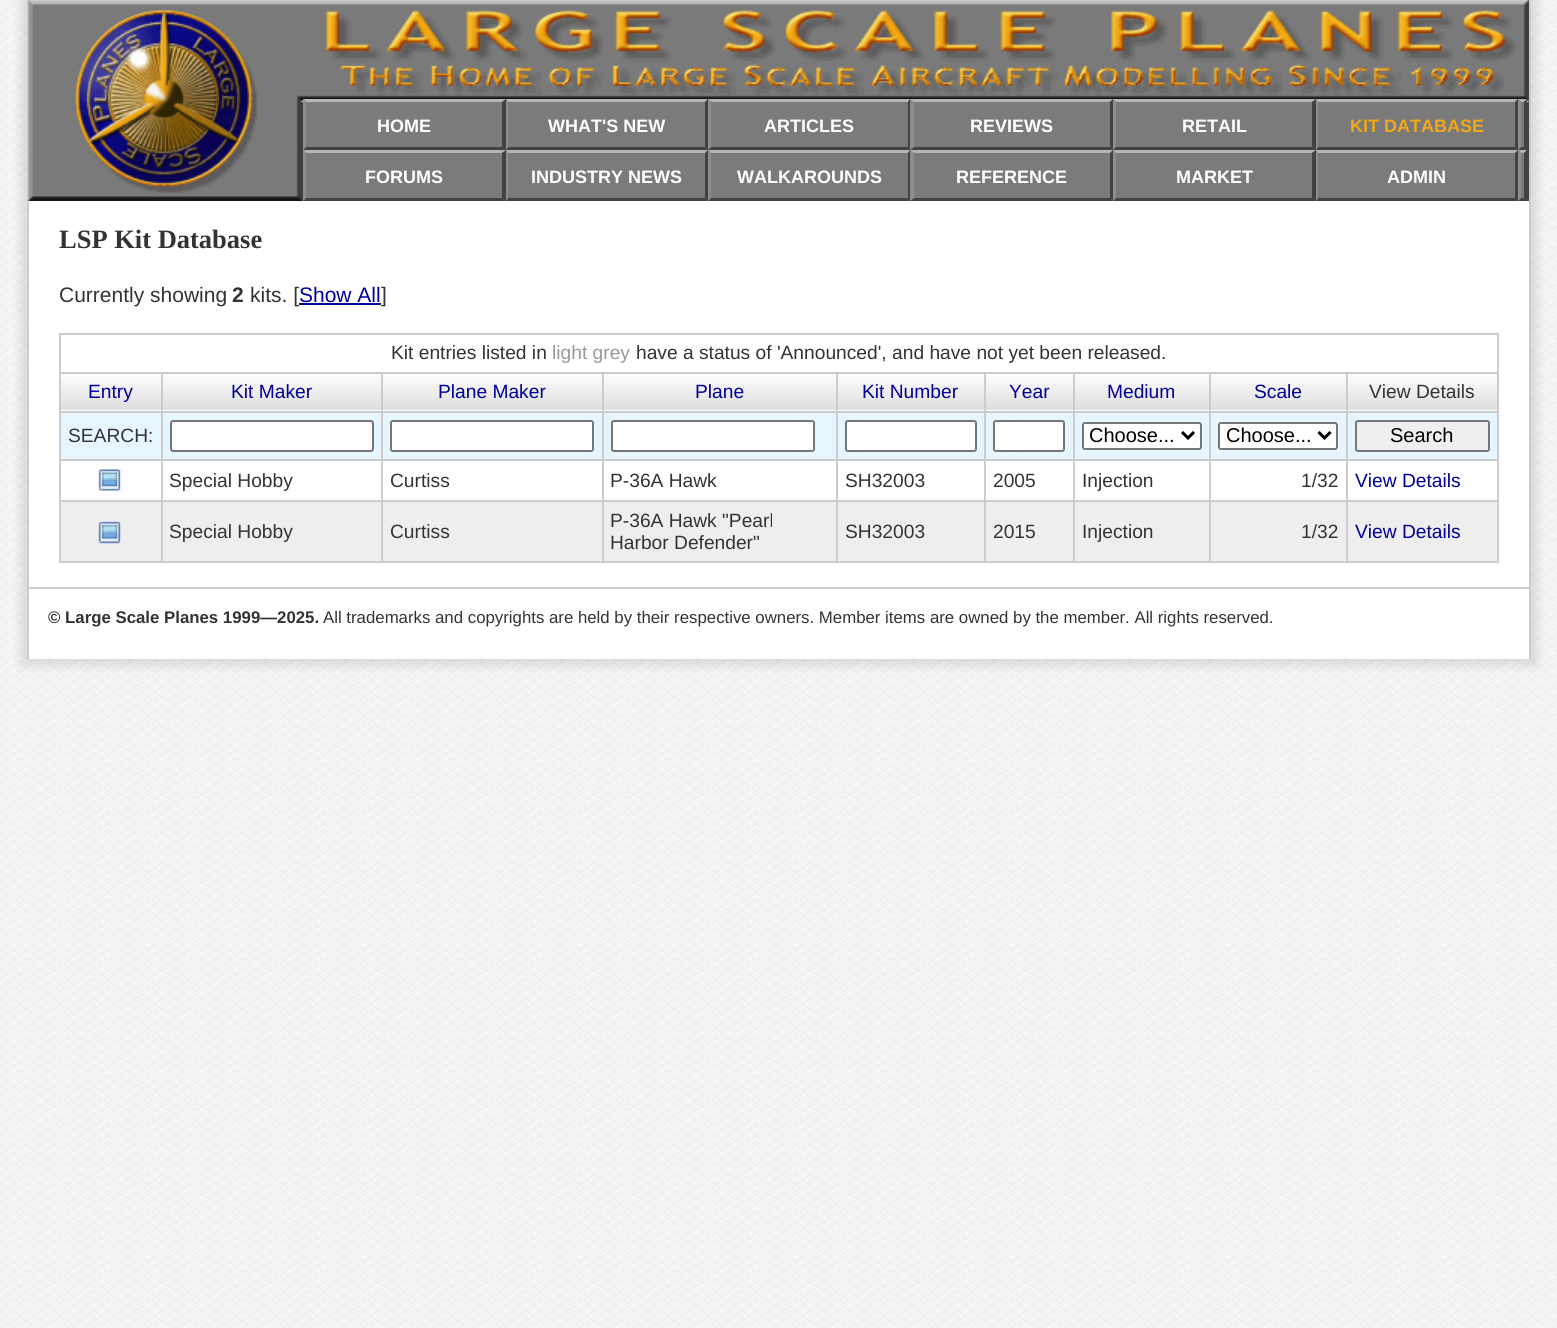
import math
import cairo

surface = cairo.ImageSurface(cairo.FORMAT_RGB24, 1557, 1328)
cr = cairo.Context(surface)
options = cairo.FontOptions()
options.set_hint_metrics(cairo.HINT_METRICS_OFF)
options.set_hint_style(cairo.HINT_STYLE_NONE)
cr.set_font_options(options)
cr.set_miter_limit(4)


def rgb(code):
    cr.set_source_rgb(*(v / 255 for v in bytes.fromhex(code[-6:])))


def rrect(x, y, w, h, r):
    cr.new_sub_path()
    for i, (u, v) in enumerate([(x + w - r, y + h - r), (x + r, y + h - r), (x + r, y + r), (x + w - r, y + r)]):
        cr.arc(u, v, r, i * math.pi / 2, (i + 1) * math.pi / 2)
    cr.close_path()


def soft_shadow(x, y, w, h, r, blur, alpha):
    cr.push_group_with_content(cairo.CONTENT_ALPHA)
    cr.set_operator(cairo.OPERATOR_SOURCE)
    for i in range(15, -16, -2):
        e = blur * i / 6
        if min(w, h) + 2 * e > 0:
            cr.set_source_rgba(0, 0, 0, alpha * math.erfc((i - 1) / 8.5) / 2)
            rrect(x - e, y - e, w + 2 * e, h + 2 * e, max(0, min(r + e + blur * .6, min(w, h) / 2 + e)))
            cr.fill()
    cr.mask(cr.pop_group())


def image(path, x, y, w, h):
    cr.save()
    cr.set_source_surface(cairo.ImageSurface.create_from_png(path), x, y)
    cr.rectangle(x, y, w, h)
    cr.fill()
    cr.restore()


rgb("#ffffff")
cr.paint()
image("img/1.png", 0, 0, 1557, 1328)
rgb("#000000")
soft_shadow(20, -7, 1518, 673, 0, 4, 0.1)
for x, y, w, h, color in [
    (29, 201, 1500, 458, "#ffffff"),
    (1529, 0, 2, 659, "#cccccc"),
    (27, 0, 2, 659, "#cccccc"),
    (301, 0, 1228, 201, "#424242"),
]:
    rgb(color)
    cr.rectangle(x, y, w, h)
    cr.fill()
image("img/2.png", 28, 0, 1501, 201)
rgb("#7b7b7b")
cr.rectangle(303, 99, 1013, 51)
cr.fill()
rgb("#b5b5b5")
cr.new_path()
cr.move_to(303, 99)
cr.line_to(506, 99)
cr.line_to(502, 102)
cr.line_to(306, 102)
cr.close_path()
cr.fill()
rgb("#424242")
cr.new_path()
cr.move_to(506, 99)
cr.line_to(506, 150)
cr.line_to(502, 147)
cr.line_to(502, 102)
cr.close_path()
cr.fill()
cr.new_path()
cr.move_to(506, 150)
cr.line_to(303, 150)
cr.line_to(306, 147)
cr.line_to(502, 147)
cr.close_path()
cr.fill()
rgb("#8d8d8d")
cr.new_path()
cr.move_to(303, 150)
cr.line_to(303, 99)
cr.line_to(306, 102)
cr.line_to(306, 147)
cr.close_path()
cr.fill()
rgb("#b5b5b5")
cr.new_path()
cr.move_to(506, 99)
cr.line_to(708, 99)
cr.line_to(705, 102)
cr.line_to(508, 102)
cr.close_path()
cr.fill()
rgb("#424242")
cr.new_path()
cr.move_to(708, 99)
cr.line_to(708, 150)
cr.line_to(705, 147)
cr.line_to(705, 102)
cr.close_path()
cr.fill()
cr.new_path()
cr.move_to(708, 150)
cr.line_to(506, 150)
cr.line_to(508, 147)
cr.line_to(705, 147)
cr.close_path()
cr.fill()
rgb("#8d8d8d")
cr.new_path()
cr.move_to(506, 150)
cr.line_to(506, 99)
cr.line_to(508, 102)
cr.line_to(508, 147)
cr.close_path()
cr.fill()
rgb("#b5b5b5")
cr.new_path()
cr.move_to(708, 99)
cr.line_to(910, 99)
cr.line_to(908, 102)
cr.line_to(711, 102)
cr.close_path()
cr.fill()
rgb("#424242")
cr.new_path()
cr.move_to(910, 99)
cr.line_to(910, 150)
cr.line_to(908, 147)
cr.line_to(908, 102)
cr.close_path()
cr.fill()
cr.new_path()
cr.move_to(910, 150)
cr.line_to(708, 150)
cr.line_to(711, 147)
cr.line_to(908, 147)
cr.close_path()
cr.fill()
rgb("#8d8d8d")
cr.new_path()
cr.move_to(708, 150)
cr.line_to(708, 99)
cr.line_to(711, 102)
cr.line_to(711, 147)
cr.close_path()
cr.fill()
rgb("#b5b5b5")
cr.new_path()
cr.move_to(910, 99)
cr.line_to(1113, 99)
cr.line_to(1110, 102)
cr.line_to(914, 102)
cr.close_path()
cr.fill()
rgb("#424242")
cr.new_path()
cr.move_to(1113, 99)
cr.line_to(1113, 150)
cr.line_to(1110, 147)
cr.line_to(1110, 102)
cr.close_path()
cr.fill()
cr.new_path()
cr.move_to(1113, 150)
cr.line_to(910, 150)
cr.line_to(914, 147)
cr.line_to(1110, 147)
cr.close_path()
cr.fill()
rgb("#8d8d8d")
cr.new_path()
cr.move_to(910, 150)
cr.line_to(910, 99)
cr.line_to(914, 102)
cr.line_to(914, 147)
cr.close_path()
cr.fill()
rgb("#b5b5b5")
cr.new_path()
cr.move_to(1113, 99)
cr.line_to(1316, 99)
cr.line_to(1312, 102)
cr.line_to(1116, 102)
cr.close_path()
cr.fill()
rgb("#424242")
cr.new_path()
cr.move_to(1316, 99)
cr.line_to(1316, 150)
cr.line_to(1312, 147)
cr.line_to(1312, 102)
cr.close_path()
cr.fill()
cr.new_path()
cr.move_to(1316, 150)
cr.line_to(1113, 150)
cr.line_to(1116, 147)
cr.line_to(1312, 147)
cr.close_path()
cr.fill()
rgb("#8d8d8d")
cr.new_path()
cr.move_to(1113, 150)
cr.line_to(1113, 99)
cr.line_to(1116, 102)
cr.line_to(1116, 147)
cr.close_path()
cr.fill()
rgb("#7a7a7a")
cr.rectangle(1316, 99, 202, 51)
cr.fill()
rgb("#b5b5b5")
cr.new_path()
cr.move_to(1316, 99)
cr.line_to(1518, 99)
cr.line_to(1515, 102)
cr.line_to(1318, 102)
cr.close_path()
cr.fill()
rgb("#424242")
cr.new_path()
cr.move_to(1518, 99)
cr.line_to(1518, 150)
cr.line_to(1515, 147)
cr.line_to(1515, 102)
cr.close_path()
cr.fill()
cr.new_path()
cr.move_to(1518, 150)
cr.line_to(1316, 150)
cr.line_to(1318, 147)
cr.line_to(1515, 147)
cr.close_path()
cr.fill()
rgb("#8d8d8d")
cr.new_path()
cr.move_to(1316, 150)
cr.line_to(1316, 99)
cr.line_to(1318, 102)
cr.line_to(1318, 147)
cr.close_path()
cr.fill()
rgb("#7b7b7b")
cr.rectangle(1518, 99, 9, 51)
cr.fill()
rgb("#b5b5b5")
cr.new_path()
cr.move_to(1518, 99)
cr.line_to(1527, 99)
cr.line_to(1524, 102)
cr.line_to(1521, 102)
cr.close_path()
cr.fill()
rgb("#424242")
cr.new_path()
cr.move_to(1527, 99)
cr.line_to(1527, 150)
cr.line_to(1524, 147)
cr.line_to(1524, 102)
cr.close_path()
cr.fill()
cr.new_path()
cr.move_to(1527, 150)
cr.line_to(1518, 150)
cr.line_to(1521, 147)
cr.line_to(1524, 147)
cr.close_path()
cr.fill()
rgb("#8d8d8d")
cr.new_path()
cr.move_to(1518, 150)
cr.line_to(1518, 99)
cr.line_to(1521, 102)
cr.line_to(1521, 147)
cr.close_path()
cr.fill()
rgb("#7b7b7b")
cr.rectangle(303, 150, 1224, 51)
cr.fill()
rgb("#b5b5b5")
cr.new_path()
cr.move_to(303, 150)
cr.line_to(506, 150)
cr.line_to(502, 153)
cr.line_to(306, 153)
cr.close_path()
cr.fill()
rgb("#424242")
cr.new_path()
cr.move_to(506, 150)
cr.line_to(506, 201)
cr.line_to(502, 198)
cr.line_to(502, 153)
cr.close_path()
cr.fill()
cr.new_path()
cr.move_to(506, 201)
cr.line_to(303, 201)
cr.line_to(306, 198)
cr.line_to(502, 198)
cr.close_path()
cr.fill()
rgb("#8d8d8d")
cr.new_path()
cr.move_to(303, 201)
cr.line_to(303, 150)
cr.line_to(306, 153)
cr.line_to(306, 198)
cr.close_path()
cr.fill()
rgb("#b5b5b5")
cr.new_path()
cr.move_to(506, 150)
cr.line_to(708, 150)
cr.line_to(705, 153)
cr.line_to(508, 153)
cr.close_path()
cr.fill()
rgb("#424242")
cr.new_path()
cr.move_to(708, 150)
cr.line_to(708, 201)
cr.line_to(705, 198)
cr.line_to(705, 153)
cr.close_path()
cr.fill()
cr.new_path()
cr.move_to(708, 201)
cr.line_to(506, 201)
cr.line_to(508, 198)
cr.line_to(705, 198)
cr.close_path()
cr.fill()
rgb("#8d8d8d")
cr.new_path()
cr.move_to(506, 201)
cr.line_to(506, 150)
cr.line_to(508, 153)
cr.line_to(508, 198)
cr.close_path()
cr.fill()
rgb("#b5b5b5")
cr.new_path()
cr.move_to(708, 150)
cr.line_to(910, 150)
cr.line_to(908, 153)
cr.line_to(711, 153)
cr.close_path()
cr.fill()
rgb("#424242")
cr.new_path()
cr.move_to(910, 150)
cr.line_to(910, 201)
cr.line_to(908, 198)
cr.line_to(908, 153)
cr.close_path()
cr.fill()
cr.new_path()
cr.move_to(910, 201)
cr.line_to(708, 201)
cr.line_to(711, 198)
cr.line_to(908, 198)
cr.close_path()
cr.fill()
rgb("#8d8d8d")
cr.new_path()
cr.move_to(708, 201)
cr.line_to(708, 150)
cr.line_to(711, 153)
cr.line_to(711, 198)
cr.close_path()
cr.fill()
rgb("#b5b5b5")
cr.new_path()
cr.move_to(910, 150)
cr.line_to(1113, 150)
cr.line_to(1110, 153)
cr.line_to(914, 153)
cr.close_path()
cr.fill()
rgb("#424242")
cr.new_path()
cr.move_to(1113, 150)
cr.line_to(1113, 201)
cr.line_to(1110, 198)
cr.line_to(1110, 153)
cr.close_path()
cr.fill()
cr.new_path()
cr.move_to(1113, 201)
cr.line_to(910, 201)
cr.line_to(914, 198)
cr.line_to(1110, 198)
cr.close_path()
cr.fill()
rgb("#8d8d8d")
cr.new_path()
cr.move_to(910, 201)
cr.line_to(910, 150)
cr.line_to(914, 153)
cr.line_to(914, 198)
cr.close_path()
cr.fill()
rgb("#b5b5b5")
cr.new_path()
cr.move_to(1113, 150)
cr.line_to(1316, 150)
cr.line_to(1312, 153)
cr.line_to(1116, 153)
cr.close_path()
cr.fill()
rgb("#424242")
cr.new_path()
cr.move_to(1316, 150)
cr.line_to(1316, 201)
cr.line_to(1312, 198)
cr.line_to(1312, 153)
cr.close_path()
cr.fill()
cr.new_path()
cr.move_to(1316, 201)
cr.line_to(1113, 201)
cr.line_to(1116, 198)
cr.line_to(1312, 198)
cr.close_path()
cr.fill()
rgb("#8d8d8d")
cr.new_path()
cr.move_to(1113, 201)
cr.line_to(1113, 150)
cr.line_to(1116, 153)
cr.line_to(1116, 198)
cr.close_path()
cr.fill()
rgb("#b5b5b5")
cr.new_path()
cr.move_to(1316, 150)
cr.line_to(1518, 150)
cr.line_to(1515, 153)
cr.line_to(1318, 153)
cr.close_path()
cr.fill()
rgb("#424242")
cr.new_path()
cr.move_to(1518, 150)
cr.line_to(1518, 201)
cr.line_to(1515, 198)
cr.line_to(1515, 153)
cr.close_path()
cr.fill()
cr.new_path()
cr.move_to(1518, 201)
cr.line_to(1316, 201)
cr.line_to(1318, 198)
cr.line_to(1515, 198)
cr.close_path()
cr.fill()
rgb("#8d8d8d")
cr.new_path()
cr.move_to(1316, 201)
cr.line_to(1316, 150)
cr.line_to(1318, 153)
cr.line_to(1318, 198)
cr.close_path()
cr.fill()
rgb("#b5b5b5")
cr.new_path()
cr.move_to(1518, 150)
cr.line_to(1527, 150)
cr.line_to(1524, 153)
cr.line_to(1521, 153)
cr.close_path()
cr.fill()
rgb("#424242")
cr.new_path()
cr.move_to(1527, 150)
cr.line_to(1527, 201)
cr.line_to(1524, 198)
cr.line_to(1524, 153)
cr.close_path()
cr.fill()
cr.new_path()
cr.move_to(1527, 201)
cr.line_to(1518, 201)
cr.line_to(1521, 198)
cr.line_to(1524, 198)
cr.close_path()
cr.fill()
rgb("#8d8d8d")
cr.new_path()
cr.move_to(1518, 201)
cr.line_to(1518, 150)
cr.line_to(1521, 153)
cr.line_to(1521, 198)
cr.close_path()
cr.fill()
for x, y, w, h, color in [
    (299, 303, 82, 2, "#000099"),
    (59, 333, 1440, 2, "#cccccc"),
    (1346, 372, 153, 2, "#cccccc"),
    (1346, 411, 153, 2, "#cccccc"),
    (1346, 459, 153, 2, "#cccccc"),
    (1346, 500, 153, 2, "#cccccc"),
    (1497, 500, 2, 63, "#cccccc"),
    (1497, 459, 2, 42, "#cccccc"),
    (1497, 411, 2, 50, "#cccccc"),
    (1497, 372, 2, 41, "#cccccc"),
    (1497, 333, 2, 41, "#cccccc"),
    (61, 413, 1436, 46, "#e7f6fe"),
    (61, 502, 1436, 59, "#eeeeee"),
    (1346, 561, 153, 2, "#cccccc"),
    (1346, 500, 2, 63, "#cccccc"),
    (1209, 500, 138, 2, "#cccccc"),
    (1346, 459, 2, 42, "#cccccc"),
    (1209, 459, 138, 2, "#cccccc"),
    (1346, 411, 2, 50, "#cccccc"),
    (1209, 411, 138, 2, "#cccccc"),
    (1346, 372, 2, 41, "#cccccc"),
    (1209, 372, 138, 2, "#cccccc"),
    (1209, 561, 138, 2, "#cccccc"),
    (1209, 500, 2, 63, "#cccccc"),
    (1073, 500, 138, 2, "#cccccc"),
    (1209, 459, 2, 42, "#cccccc"),
    (1073, 459, 138, 2, "#cccccc"),
    (1209, 411, 2, 50, "#cccccc"),
    (1073, 411, 138, 2, "#cccccc"),
    (1209, 372, 2, 41, "#cccccc"),
    (1073, 372, 138, 2, "#cccccc"),
    (1073, 561, 138, 2, "#cccccc"),
    (1073, 500, 2, 63, "#cccccc"),
    (984, 500, 90, 2, "#cccccc"),
    (1073, 459, 2, 42, "#cccccc"),
    (984, 459, 90, 2, "#cccccc"),
    (1073, 411, 2, 50, "#cccccc"),
    (984, 411, 90, 2, "#cccccc"),
    (1073, 372, 2, 41, "#cccccc"),
    (984, 372, 90, 2, "#cccccc"),
    (984, 561, 90, 2, "#cccccc"),
    (984, 500, 2, 63, "#cccccc"),
    (836, 500, 150, 2, "#cccccc"),
    (984, 459, 2, 42, "#cccccc"),
    (836, 459, 150, 2, "#cccccc"),
    (984, 411, 2, 50, "#cccccc"),
    (836, 411, 150, 2, "#cccccc"),
    (984, 372, 2, 41, "#cccccc"),
    (836, 372, 150, 2, "#cccccc"),
    (836, 561, 150, 2, "#cccccc"),
    (836, 500, 2, 63, "#cccccc"),
    (602, 500, 235, 2, "#cccccc"),
    (836, 459, 2, 42, "#cccccc"),
    (602, 459, 235, 2, "#cccccc"),
    (836, 411, 2, 50, "#cccccc"),
    (602, 411, 235, 2, "#cccccc"),
    (836, 372, 2, 41, "#cccccc"),
    (602, 372, 235, 2, "#cccccc"),
    (602, 561, 235, 2, "#cccccc"),
    (602, 500, 2, 63, "#cccccc"),
    (381, 500, 222, 2, "#cccccc"),
    (602, 459, 2, 42, "#cccccc"),
    (381, 459, 222, 2, "#cccccc"),
    (602, 411, 2, 50, "#cccccc"),
    (381, 411, 222, 2, "#cccccc"),
    (602, 372, 2, 41, "#cccccc"),
    (381, 372, 222, 2, "#cccccc"),
    (381, 561, 222, 2, "#cccccc"),
    (381, 500, 2, 63, "#cccccc"),
    (161, 500, 222, 2, "#cccccc"),
    (381, 459, 2, 42, "#cccccc"),
    (161, 459, 222, 2, "#cccccc"),
    (381, 411, 2, 50, "#cccccc"),
    (161, 411, 222, 2, "#cccccc"),
    (381, 372, 2, 41, "#cccccc"),
    (161, 372, 222, 2, "#cccccc"),
    (161, 561, 222, 2, "#cccccc"),
    (161, 500, 2, 63, "#cccccc"),
    (59, 500, 103, 2, "#cccccc"),
    (161, 459, 2, 42, "#cccccc"),
    (59, 459, 103, 2, "#cccccc"),
    (161, 411, 2, 50, "#cccccc"),
    (59, 411, 103, 2, "#cccccc"),
    (161, 372, 2, 41, "#cccccc"),
    (59, 372, 103, 2, "#cccccc"),
    (59, 561, 103, 2, "#cccccc"),
    (59, 500, 2, 63, "#cccccc"),
    (59, 459, 2, 42, "#cccccc"),
    (59, 411, 2, 50, "#cccccc"),
    (59, 372, 2, 41, "#cccccc"),
    (59, 333, 2, 41, "#cccccc"),
]:
    rgb(color)
    cr.rectangle(x, y, w, h)
    cr.fill()
gradient = cairo.LinearGradient(62, 374, 62, 410)
gradient.add_color_stop_rgba(0, 0.996, 0.996, 0.996, 1)
gradient.add_color_stop_rgba(1, 0.867, 0.867, 0.867, 1)
cr.set_source(gradient)
cr.rectangle(61, 376, 100, 34)
cr.fill()
gradient = cairo.LinearGradient(162, 374, 162, 410)
gradient.add_color_stop_rgba(0, 0.996, 0.996, 0.996, 1)
gradient.add_color_stop_rgba(1, 0.867, 0.867, 0.867, 1)
cr.set_source(gradient)
cr.rectangle(163, 376, 218, 34)
cr.fill()
gradient = cairo.LinearGradient(383, 374, 383, 410)
gradient.add_color_stop_rgba(0, 0.996, 0.996, 0.996, 1)
gradient.add_color_stop_rgba(1, 0.867, 0.867, 0.867, 1)
cr.set_source(gradient)
cr.rectangle(383, 376, 219, 34)
cr.fill()
gradient = cairo.LinearGradient(603, 374, 603, 410)
gradient.add_color_stop_rgba(0, 0.996, 0.996, 0.996, 1)
gradient.add_color_stop_rgba(1, 0.867, 0.867, 0.867, 1)
cr.set_source(gradient)
cr.rectangle(604, 376, 232, 34)
cr.fill()
gradient = cairo.LinearGradient(839, 374, 839, 410)
gradient.add_color_stop_rgba(0, 0.996, 0.996, 0.996, 1)
gradient.add_color_stop_rgba(1, 0.867, 0.867, 0.867, 1)
cr.set_source(gradient)
cr.rectangle(838, 376, 146, 34)
cr.fill()
gradient = cairo.LinearGradient(987, 374, 987, 410)
gradient.add_color_stop_rgba(0, 0.996, 0.996, 0.996, 1)
gradient.add_color_stop_rgba(1, 0.867, 0.867, 0.867, 1)
cr.set_source(gradient)
cr.rectangle(986, 376, 87, 34)
cr.fill()
gradient = cairo.LinearGradient(1076, 374, 1076, 410)
gradient.add_color_stop_rgba(0, 0.996, 0.996, 0.996, 1)
gradient.add_color_stop_rgba(1, 0.867, 0.867, 0.867, 1)
cr.set_source(gradient)
cr.rectangle(1075, 376, 134, 34)
cr.fill()
gradient = cairo.LinearGradient(1212, 374, 1212, 410)
gradient.add_color_stop_rgba(0, 0.996, 0.996, 0.996, 1)
gradient.add_color_stop_rgba(1, 0.867, 0.867, 0.867, 1)
cr.set_source(gradient)
cr.rectangle(1211, 376, 135, 34)
cr.fill()
gradient = cairo.LinearGradient(1349, 374, 1349, 410)
gradient.add_color_stop_rgba(0, 0.996, 0.996, 0.996, 1)
gradient.add_color_stop_rgba(1, 0.867, 0.867, 0.867, 1)
cr.set_source(gradient)
cr.rectangle(1348, 376, 149, 34)
cr.fill()
rgb("#ffffff")
rrect(171, 421, 202, 30, 2)
cr.fill_preserve()
rgb("#767676")
cr.stroke()
rgb("#ffffff")
rrect(391, 421, 202, 30, 2)
cr.fill_preserve()
rgb("#767676")
cr.stroke()
rgb("#ffffff")
rrect(612, 421, 202, 30, 2)
cr.fill_preserve()
rgb("#767676")
cr.stroke()
rgb("#ffffff")
rrect(846, 421, 130, 30, 2)
cr.fill_preserve()
rgb("#767676")
cr.stroke()
rgb("#ffffff")
rrect(994, 421, 70, 30, 2)
cr.fill_preserve()
rgb("#767676")
cr.stroke()
rgb("#ffffff")
rrect(1083, 423, 118, 26, 2)
cr.fill_preserve()
rgb("#767676")
cr.stroke()
cr.new_path()
cr.move_to(1182, 432)
cr.line_to(1188, 438)
cr.line_to(1194, 432)
rgb("#000000")
cr.set_line_width(3)
cr.stroke()
rgb("#ffffff")
rrect(1219, 423, 118, 26, 2)
cr.fill_preserve()
rgb("#767676")
cr.set_line_width(2)
cr.stroke()
cr.new_path()
cr.move_to(1318.5, 432)
cr.line_to(1324.5, 438)
cr.line_to(1330.5, 432)
rgb("#000000")
cr.set_line_width(3)
cr.stroke()
rgb("#efefef")
rrect(1356, 421, 133, 30, 2)
cr.fill_preserve()
rgb("#767676")
cr.set_line_width(2)
cr.stroke()
image("img/3.png", 98, 469, 23, 22)
image("img/4.png", 98, 521, 23, 23)
rgb("#cccccc")
cr.rectangle(29, 587, 1500, 2)
cr.fill()
cr.select_font_face("Liberation Sans", cairo.FONT_SLANT_NORMAL, cairo.FONT_WEIGHT_BOLD)
cr.set_font_size(18)
rgb("#ffffff")
for x, y, s in [
    (377, 132, "HOME"),
    (548, 132, "WHAT'S NEW"),
    (764, 132, "ARTICLES"),
    (970, 132, "REVIEWS"),
    (1182, 132, "RETAIL"),
]:
    cr.move_to(x, y)
    cr.show_text(s)
rgb("#f0a71a")
cr.move_to(1350, 132)
cr.show_text("KIT DATABASE")
rgb("#ffffff")
for x, y, s in [
    (365, 183, "FORUMS"),
    (531, 183, "INDUSTRY NEWS"),
    (737, 183, "WALKAROUNDS"),
    (956, 183, "REFERENCE"),
    (1176, 183, "MARKET"),
    (1387, 183, "ADMIN"),
]:
    cr.move_to(x, y)
    cr.show_text(s)
cr.select_font_face("Liberation Serif", cairo.FONT_SLANT_NORMAL, cairo.FONT_WEIGHT_BOLD)
cr.set_font_size(26.5)
rgb("#333333")
cr.move_to(59, 248)
cr.show_text("LSP Kit Database")
cr.select_font_face("Liberation Sans")
cr.set_font_size(21)
cr.move_to(59, 302)
cr.show_text("Currently showing")
cr.select_font_face("Liberation Sans", cairo.FONT_SLANT_NORMAL, cairo.FONT_WEIGHT_BOLD)
cr.move_to(232, 302)
cr.show_text("2")
cr.select_font_face("Liberation Sans")
cr.move_to(250, 302)
cr.show_text("kits. [")
rgb("#000099")
cr.move_to(299, 302)
cr.show_text("Show All")
rgb("#333333")
cr.move_to(381, 302)
cr.show_text("]")
cr.set_font_size(19.2)
cr.move_to(391, 359)
cr.show_text("Kit entries listed in")
rgb("#999999")
cr.move_to(552, 359)
cr.show_text("light grey")
rgb("#333333")
cr.move_to(636, 359)
cr.show_text("have a status of 'Announced', and have not yet been released.")
rgb("#000099")
for x, y, s in [
    (88, 398, "Entry"),
    (231, 398, "Kit Maker"),
    (438, 398, "Plane Maker"),
    (695, 398, "Plane"),
    (862, 398, "Kit Number"),
    (1009, 398, "Year"),
    (1107, 398, "Medium"),
    (1254, 398, "Scale"),
]:
    cr.move_to(x, y)
    cr.show_text(s)
rgb("#333333")
cr.move_to(1369, 398)
cr.show_text("View Details")
cr.move_to(68, 442)
cr.show_text("SEARCH:")
cr.set_font_size(20)
rgb("#000000")
for x, y, s in [
    (1089, 442, "Choose..."),
    (1226, 442, "Choose..."),
    (1390, 442, "Search"),
]:
    cr.move_to(x, y)
    cr.show_text(s)
cr.set_font_size(19.2)
rgb("#333333")
for x, y, s in [
    (169, 487, "Special Hobby"),
    (390, 487, "Curtiss"),
    (610, 487, "P-36A Hawk"),
    (845, 487, "SH32003"),
    (993, 487, "2005"),
    (1082, 487, "Injection"),
    (1301, 487, "1/32"),
]:
    cr.move_to(x, y)
    cr.show_text(s)
rgb("#000099")
cr.move_to(1355, 487)
cr.show_text("View Details")
rgb("#333333")
for x, y, s in [
    (169, 538, "Special Hobby"),
    (390, 538, "Curtiss"),
    (610, 527, "P-36A Hawk \"Pearl"),
    (610, 549, "Harbor Defender\""),
    (845, 538, "SH32003"),
    (993, 538, "2015"),
    (1082, 538, "Injection"),
    (1301, 538, "1/32"),
]:
    cr.move_to(x, y)
    cr.show_text(s)
rgb("#000099")
cr.move_to(1355, 538)
cr.show_text("View Details")
cr.select_font_face("Liberation Sans", cairo.FONT_SLANT_NORMAL, cairo.FONT_WEIGHT_BOLD)
cr.set_font_size(16.8)
rgb("#333333")
cr.move_to(48, 623)
cr.show_text("© Large Scale Planes 1999—2025.")
cr.select_font_face("Liberation Sans")
cr.move_to(323, 623)
cr.show_text("All trademarks and copyrights are held by their respective owners. Member items are owned by the member. All rights reserved.")
surface.write_to_png("page.png")
